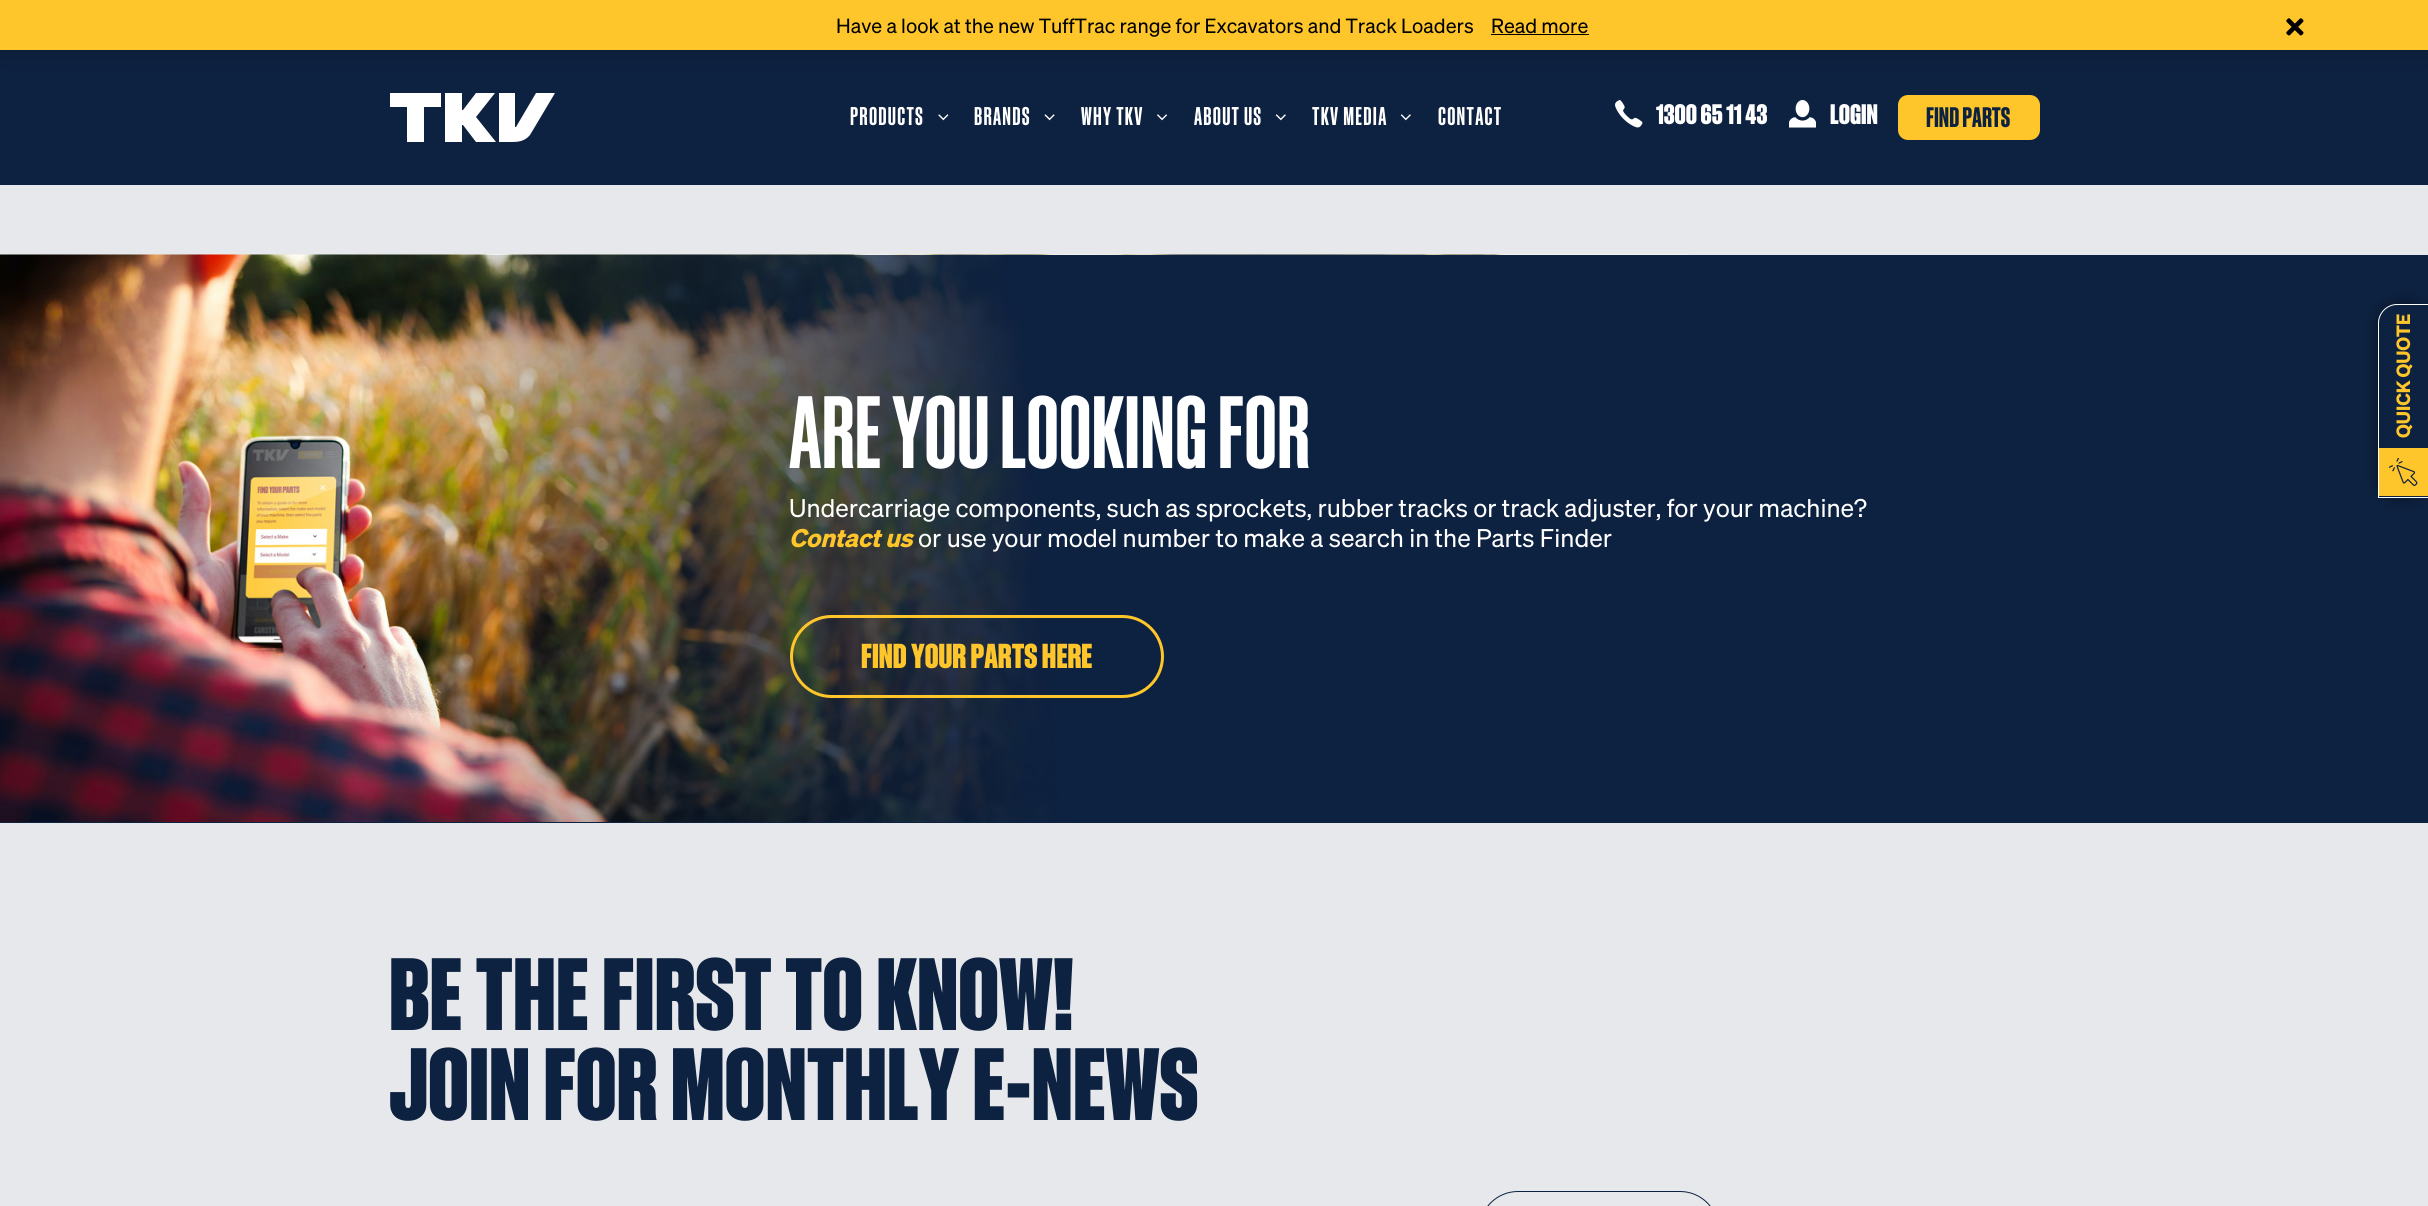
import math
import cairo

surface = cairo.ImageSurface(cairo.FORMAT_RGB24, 2428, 1206)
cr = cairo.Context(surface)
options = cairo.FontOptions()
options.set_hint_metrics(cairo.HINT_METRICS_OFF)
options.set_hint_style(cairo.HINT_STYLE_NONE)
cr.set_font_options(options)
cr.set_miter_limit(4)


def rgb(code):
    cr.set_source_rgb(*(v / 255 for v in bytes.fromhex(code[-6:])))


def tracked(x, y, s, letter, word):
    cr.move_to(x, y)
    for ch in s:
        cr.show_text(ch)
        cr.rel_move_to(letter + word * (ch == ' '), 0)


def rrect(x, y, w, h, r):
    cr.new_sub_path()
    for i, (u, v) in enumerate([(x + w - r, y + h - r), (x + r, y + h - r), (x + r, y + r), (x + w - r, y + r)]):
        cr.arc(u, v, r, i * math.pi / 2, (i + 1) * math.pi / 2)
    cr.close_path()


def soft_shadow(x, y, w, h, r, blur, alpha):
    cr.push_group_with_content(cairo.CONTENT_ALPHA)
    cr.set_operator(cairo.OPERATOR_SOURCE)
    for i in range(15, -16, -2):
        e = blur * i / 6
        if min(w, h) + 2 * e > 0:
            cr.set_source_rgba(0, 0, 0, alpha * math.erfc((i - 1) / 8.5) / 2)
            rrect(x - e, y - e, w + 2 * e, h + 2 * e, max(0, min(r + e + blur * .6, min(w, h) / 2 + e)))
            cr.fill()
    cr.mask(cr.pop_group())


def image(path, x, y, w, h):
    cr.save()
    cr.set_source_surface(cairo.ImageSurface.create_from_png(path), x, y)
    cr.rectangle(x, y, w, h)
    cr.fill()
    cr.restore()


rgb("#ffffff")
cr.paint()
rgb("#0d2140")
cr.rectangle(0, 50, 2428, 135)
cr.fill()
rgb("#000000")
soft_shadow(0, 1, 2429, 50, 0, 10, 0.2)
rgb("#ffc62b")
cr.rectangle(0, 0, 2428, 50)
cr.fill()
rgb("#000000")
cr.rectangle(1491, 34, 98, 1)
cr.fill()
image("img/1.png", 2286, 18, 18, 18)
rgb("#ffffff")
cr.set_fill_rule(cairo.FILL_RULE_EVEN_ODD)
cr.new_path()
cr.move_to(441, 93)
cr.line_to(390, 93)
cr.line_to(390, 107)
cr.line_to(407, 107)
cr.line_to(407, 142)
cr.line_to(424, 142)
cr.line_to(424, 107)
cr.line_to(441, 107)
cr.close_path()
cr.move_to(512, 142)
cr.line_to(499, 142)
cr.line_to(499, 93)
cr.line_to(515, 93)
cr.line_to(515, 127)
cr.line_to(516, 127)
cr.line_to(536, 93)
cr.line_to(555, 93)
cr.line_to(530, 135)
cr.curve_to(525, 141, 519, 142, 512, 142)
cr.close_path()
cr.move_to(496, 142)
cr.line_to(476, 142)
cr.line_to(463, 125)
cr.line_to(462, 125)
cr.line_to(462, 142)
cr.line_to(445, 142)
cr.line_to(445, 93)
cr.line_to(462, 93)
cr.line_to(462, 110)
cr.line_to(463, 110)
cr.line_to(476, 93)
cr.line_to(495, 93)
cr.line_to(476, 117)
cr.close_path()
cr.fill()
image("img/2.png", 938, 114, 11, 7)
image("img/3.png", 1044, 114, 11, 7)
image("img/4.png", 1157, 114, 11, 7)
image("img/5.png", 1275, 114, 11, 7)
image("img/5.png", 1400, 114, 11, 7)
image("img/6.png", 1615, 100, 28, 28)
image("img/7.png", 1789, 100, 27, 28)
rgb("#ffc62b")
rrect(1898, 95, 142, 45, 10)
cr.fill()
rgb("#0d2140")
cr.rectangle(0, 822, 1062, 1)
cr.fill()
gradient = cairo.LinearGradient(1214, 255, 1214, -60)
gradient.add_color_stop_rgba(0.37, 0.902, 0.91, 0.922, 1)
gradient.add_color_stop_rgba(1, 1, 1, 1, 1)
cr.set_source(gradient)
cr.rectangle(0, 185, 2428, 70)
cr.fill()
image("img/9.png", 0, 254, 1689, 568)
gradient = cairo.LinearGradient(-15, 646, 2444, 431)
gradient.add_color_stop_rgba(0.17, 0.051, 0.129, 0.251, 0)
gradient.add_color_stop_rgba(0.43, 0.051, 0.129, 0.251, 1)
cr.set_source(gradient)
cr.rectangle(387, 255, 2041, 568)
cr.fill()
rgb("#000000")
soft_shadow(2378, 304, 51, 194, 19, 6, 0.5)
rgb("#0d2140")
cr.new_path()
cr.move_to(2397, 304.5)
cr.line_to(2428.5, 304.5)
cr.line_to(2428.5, 497.5)
cr.line_to(2378.5, 497.5)
cr.line_to(2378.5, 323)
cr.curve_to(2378.5, 313, 2387, 304.5, 2397, 304.5)
cr.close_path()
cr.fill_preserve()
rgb("#ffffff")
cr.set_line_width(1)
cr.stroke()
rgb("#ffc62b")
cr.rectangle(2379, 448, 49, 48)
cr.fill()
image("img/8.png", 2389, 458, 29, 28)
rrect(791.5, 616.5, 371, 80, 40)
cr.set_line_width(3)
cr.stroke()
rgb("#e6e8eb")
cr.rectangle(0, 823, 2428, 383)
cr.fill()
rrect(1479.5, 1191.5, 239, 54, 38.5)
rgb("#0d2140")
cr.set_line_width(1)
cr.stroke()
cr.select_font_face("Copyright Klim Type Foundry")
cr.set_font_size(20)
rgb("#000000")
cr.move_to(836, 33)
cr.show_text("Have a look at the new TuffTrac range for Excavators and Track Loaders")
cr.move_to(1491, 33)
cr.show_text("Read more")
cr.select_font_face("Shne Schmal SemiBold")
cr.set_font_size(25)
rgb("#ffffff")
for x, y, s in [
    (850, 125, "PRODUCTS"),
    (974, 125, "BRANDS"),
    (1081, 125, "WHY TKV"),
    (1194, 125, "ABOUT US"),
    (1312, 125, "TKV MEDIA"),
    (1438, 125, "CONTACT"),
]:
    tracked(x, y, s, 1.25, 0)
cr.select_font_face("Shne Schmal ExtraBold")
cr.set_font_size(27.5)
cr.move_to(1656, 124)
cr.show_text("1300 65 11 43")
cr.move_to(1830, 124)
cr.show_text("LOGIN")
cr.select_font_face("Copyright Klim Type Foundry", cairo.FONT_SLANT_NORMAL, cairo.FONT_WEIGHT_BOLD)
rgb("#0d2140")
cr.move_to(1926, 127)
cr.show_text("FIND PARTS")
cr.select_font_face("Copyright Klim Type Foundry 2", cairo.FONT_SLANT_NORMAL, cairo.FONT_WEIGHT_BOLD)
cr.set_font_size(18.75)
rgb("#ffc62b")
cr.save()
cr.translate(2410, 438)
cr.rotate(-90 * math.pi / 180)
tracked(0, 0, "QUICK QUOTE", 0, -1)
cr.restore()
cr.select_font_face("Shne Schmal SemiBold")
cr.set_font_size(100)
rgb("#ffffff")
cr.move_to(789, 468)
cr.show_text("ARE YOU LOOKING FOR")
cr.select_font_face("Copyright Klim Type Foundry")
cr.set_font_size(25)
cr.move_to(789, 517)
cr.show_text("Undercarriage components, such as sprockets, rubber tracks or track adjuster, for your machine?")
cr.select_font_face("Copyright Klim Type Foundry", cairo.FONT_SLANT_ITALIC, cairo.FONT_WEIGHT_BOLD)
rgb("#ffc62b")
cr.move_to(789, 547)
cr.show_text("Contact us")
cr.select_font_face("Copyright Klim Type Foundry")
rgb("#ffffff")
cr.move_to(918, 547)
cr.show_text("or use your model number to make a search in the Parts Finder")
cr.select_font_face("Shne Schmal ExtraBold")
cr.set_font_size(33.75)
rgb("#ffc62b")
cr.move_to(861, 668)
cr.show_text("FIND YOUR PARTS HERE")
cr.set_font_size(100)
rgb("#0d2140")
cr.move_to(389, 1030)
cr.show_text("BE THE FIRST TO KNOW!")
cr.move_to(389, 1120)
cr.show_text("JOIN FOR MONTHLY E-NEWS")
surface.write_to_png("page.png")
